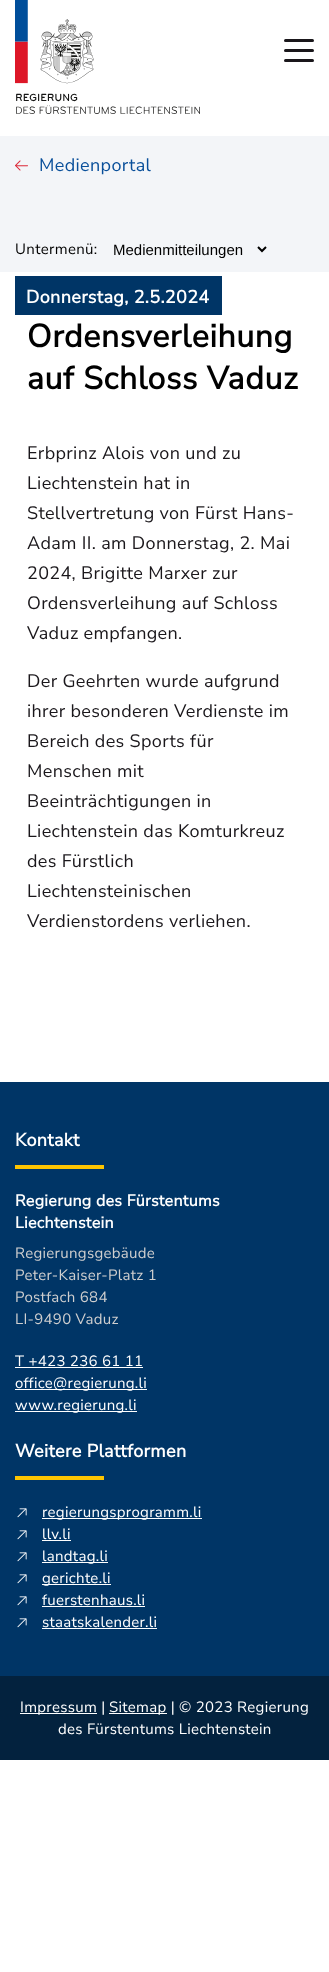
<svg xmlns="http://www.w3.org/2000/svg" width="329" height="1972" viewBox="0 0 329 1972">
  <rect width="100%" height="100%" fill="#ffffff"/>
  <image x="15" y="0" width="185" height="114" href="img1.png"/>
  <rect x="284" y="39" width="30" height="3" rx="1.5" fill="#1a171b"/>
  <rect x="284" y="49" width="30" height="3" rx="1.5" fill="#1a171b"/>
  <rect x="284" y="59" width="30" height="3" rx="1.5" fill="#1a171b"/>
  <rect x="0" y="136" width="329" height="136" fill="#f3f5f8"/>
  <image x="15" y="160" width="13" height="11" href="img2.png"/>
  <text x="39" y="171" font-family="Nunito Sans" font-size="18" letter-spacing="0.35" fill="#094f9a">Medienportal</text>
  <text x="15" y="254" font-family="Nunito Sans" font-size="15" letter-spacing="0.35" fill="#000000">Untermenü:</text>
  <path d="M258 247L262 251L266 247" fill="none" stroke="#000000" stroke-width="2"/>
  <text x="113" y="255" font-family="Liberation Sans" font-size="15" fill="#000000">Medienmitteilungen</text>
  <rect x="15" y="276" width="207" height="39" fill="#003566"/>
  <text x="26" y="303" font-family="Nunito Sans" font-size="18" font-weight="bold" letter-spacing="0.35" fill="#ffffff">Donnerstag, 2.5.2024</text>
  <text x="27" y="347" font-family="Nunito Sans" font-size="32" font-weight="bold" letter-spacing="0.6" fill="#000000">Ordensverleihung</text>
  <text x="27" y="389" font-family="Nunito Sans" font-size="32" font-weight="bold" letter-spacing="0.6" fill="#000000">auf Schloss Vaduz</text>
  <text x="27" y="459" font-family="Nunito Sans" font-size="18" letter-spacing="0.35" fill="#1a171b">Erbprinz Alois von und zu</text>
  <text x="27" y="489" font-family="Nunito Sans" font-size="18" letter-spacing="0.35" fill="#1a171b">Liechtenstein hat in</text>
  <text x="27" y="519" font-family="Nunito Sans" font-size="18" letter-spacing="0.35" fill="#1a171b">Stellvertretung von Fürst Hans-</text>
  <text x="27" y="549" font-family="Nunito Sans" font-size="18" letter-spacing="0.35" fill="#1a171b">Adam II. am Donnerstag, 2. Mai</text>
  <text x="27" y="579" font-family="Nunito Sans" font-size="18" letter-spacing="0.35" fill="#1a171b">2024, Brigitte Marxer zur</text>
  <text x="27" y="609" font-family="Nunito Sans" font-size="18" letter-spacing="0.35" fill="#1a171b">Ordensverleihung auf Schloss</text>
  <text x="27" y="639" font-family="Nunito Sans" font-size="18" letter-spacing="0.35" fill="#1a171b">Vaduz empfangen.</text>
  <text x="27" y="687" font-family="Nunito Sans" font-size="18" letter-spacing="0.35" fill="#1a171b">Der Geehrten wurde aufgrund</text>
  <text x="27" y="717" font-family="Nunito Sans" font-size="18" letter-spacing="0.35" fill="#1a171b">ihrer besonderen Verdienste im</text>
  <text x="27" y="747" font-family="Nunito Sans" font-size="18" letter-spacing="0.35" fill="#1a171b">Bereich des Sports für</text>
  <text x="27" y="777" font-family="Nunito Sans" font-size="18" letter-spacing="0.35" fill="#1a171b">Menschen mit</text>
  <text x="27" y="807" font-family="Nunito Sans" font-size="18" letter-spacing="0.35" fill="#1a171b">Beeinträchtigungen in</text>
  <text x="27" y="837" font-family="Nunito Sans" font-size="18" letter-spacing="0.35" fill="#1a171b">Liechtenstein das Komturkreuz</text>
  <text x="27" y="867" font-family="Nunito Sans" font-size="18" letter-spacing="0.35" fill="#1a171b">des Fürstlich</text>
  <text x="27" y="897" font-family="Nunito Sans" font-size="18" letter-spacing="0.35" fill="#1a171b">Liechtensteinischen</text>
  <text x="27" y="927" font-family="Nunito Sans" font-size="18" letter-spacing="0.35" fill="#1a171b">Verdienstordens verliehen.</text>
  <rect x="0" y="1082" width="329" height="594" fill="#003566"/>
  <text x="15" y="1146" font-family="Nunito Sans" font-size="18" font-weight="bold" letter-spacing="0.35" fill="#ffffff">Kontakt</text>
  <rect x="15" y="1165" width="89" height="4" fill="#fdc400"/>
  <text x="15" y="1206" font-family="Nunito Sans" font-size="16" font-weight="bold" letter-spacing="0.3" fill="#ffffff">Regierung des Fürstentums</text>
  <text x="15" y="1228" font-family="Nunito Sans" font-size="16" font-weight="bold" letter-spacing="0.3" fill="#ffffff">Liechtenstein</text>
  <text x="15" y="1258" font-family="Nunito Sans" font-size="15" letter-spacing="0.3" fill="#cfcfcf">Regierungsgebäude</text>
  <text x="15" y="1280" font-family="Nunito Sans" font-size="15" letter-spacing="0.3" fill="#cfcfcf">Peter-Kaiser-Platz 1</text>
  <text x="15" y="1302" font-family="Nunito Sans" font-size="15" letter-spacing="0.3" fill="#cfcfcf">Postfach 684</text>
  <text x="15" y="1324" font-family="Nunito Sans" font-size="15" letter-spacing="0.3" fill="#cfcfcf">LI-9490 Vaduz</text>
  <text x="15" y="1366" font-family="Nunito Sans" font-size="15" letter-spacing="0.3" fill="#ffffff">T +423 236 61 11</text>
  <rect x="15" y="1367" width="128" height="1" fill="#ffffff"/>
  <rect x="15" y="1389" width="132" height="1" fill="#ffffff"/>
  <text x="15" y="1388" font-family="Nunito Sans" font-size="15" letter-spacing="0.3" fill="#ffffff">office@regierung.li</text>
  <rect x="15" y="1411" width="122" height="1" fill="#ffffff"/>
  <text x="15" y="1410" font-family="Nunito Sans" font-size="15" letter-spacing="0.3" fill="#ffffff">www.regierung.li</text>
  <text x="15" y="1457" font-family="Nunito Sans" font-size="18" font-weight="bold" letter-spacing="0.35" fill="#ffffff">Weitere Plattformen</text>
  <rect x="15" y="1476" width="89" height="4" fill="#fdc400"/>
  <image x="17" y="1508" width="10" height="10" href="img3.png"/>
  <rect x="42" y="1518" width="160" height="1" fill="#ffffff"/>
  <text x="42" y="1517" font-family="Nunito Sans" font-size="15" letter-spacing="0.3" fill="#ffffff">regierungsprogramm.li</text>
  <image x="17" y="1530" width="10" height="10" href="img3.png"/>
  <text x="42" y="1539" font-family="Nunito Sans" font-size="15" letter-spacing="0.3" fill="#ffffff">llv.li</text>
  <rect x="42" y="1540" width="29" height="1" fill="#ffffff"/>
  <image x="17" y="1552" width="10" height="10" href="img3.png"/>
  <rect x="42" y="1562" width="66" height="1" fill="#ffffff"/>
  <text x="42" y="1561" font-family="Nunito Sans" font-size="15" letter-spacing="0.3" fill="#ffffff">landtag.li</text>
  <image x="17" y="1574" width="10" height="10" href="img3.png"/>
  <rect x="42" y="1584" width="69" height="1" fill="#ffffff"/>
  <text x="42" y="1583" font-family="Nunito Sans" font-size="15" letter-spacing="0.3" fill="#ffffff">gerichte.li</text>
  <image x="17" y="1596" width="10" height="10" href="img3.png"/>
  <text x="42" y="1605" font-family="Nunito Sans" font-size="15" letter-spacing="0.3" fill="#ffffff">fuerstenhaus.li</text>
  <rect x="42" y="1606" width="103" height="1" fill="#ffffff"/>
  <image x="17" y="1618" width="10" height="10" href="img3.png"/>
  <text x="42" y="1627" font-family="Nunito Sans" font-size="15" letter-spacing="0.3" fill="#ffffff">staatskalender.li</text>
  <rect x="42" y="1628" width="115" height="1" fill="#ffffff"/>
  <rect x="0" y="1676" width="329" height="84" fill="#03223e"/>
  <rect x="20" y="1713" width="77" height="1" fill="#ffffff"/>
  <text x="20" y="1712" font-family="Nunito Sans" font-size="15" letter-spacing="0.3" fill="#ffffff">Impressum |</text>
  <rect x="109" y="1713" width="58" height="1" fill="#ffffff"/>
  <text x="109" y="1712" font-family="Nunito Sans" font-size="15" letter-spacing="0.3" fill="#ffffff">Sitemap | © 2023 Regierung</text>
  <text x="58" y="1734" font-family="Nunito Sans" font-size="15" letter-spacing="0.3" fill="#ffffff">des Fürstentums Liechtenstein</text>
</svg>
